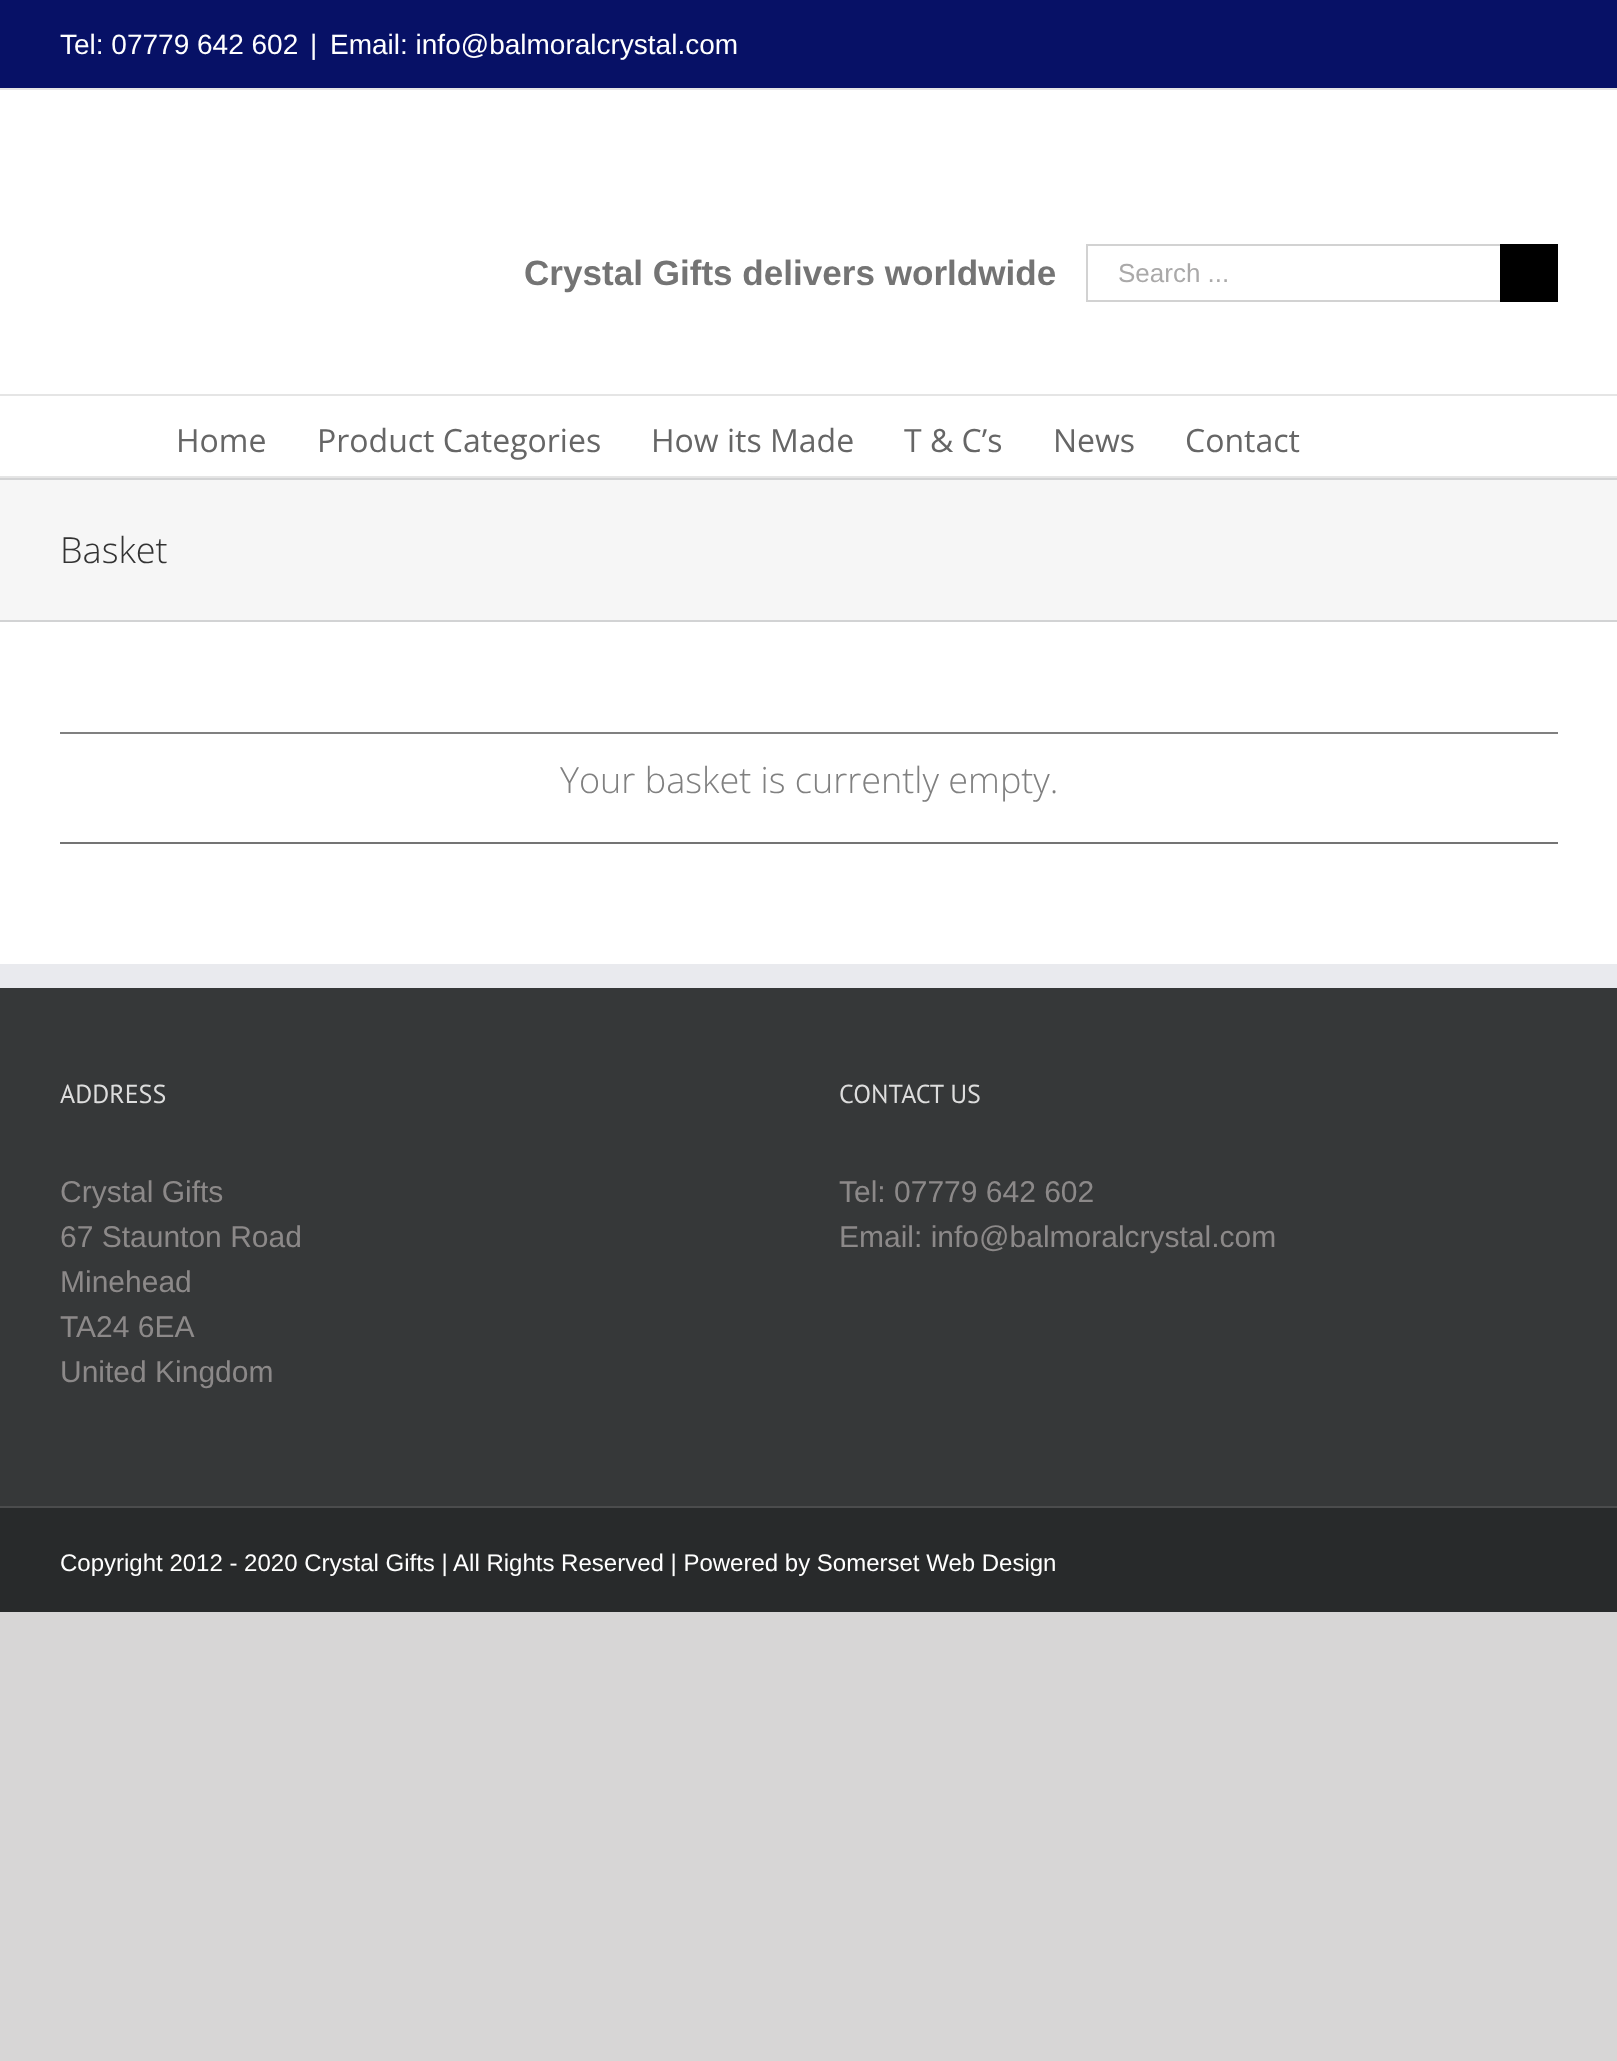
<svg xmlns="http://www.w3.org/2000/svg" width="1617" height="2061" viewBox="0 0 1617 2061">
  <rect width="100%" height="100%" fill="#d7d6d6"/>
  <rect x="0" y="90" width="1617" height="874" fill="#ffffff"/>
  <rect x="0" y="0" width="1617" height="88" fill="#071166"/>
  <rect x="0" y="88" width="1617" height="2" fill="#e5e5e5"/>
  <text x="60" y="54" font-family="Liberation Sans" font-size="28" fill="#ffffff">Tel: 07779 642 602</text>
  <text x="310" y="54" font-family="Liberation Sans" font-size="28" fill="#ffffff">|</text>
  <text x="330" y="54" font-family="Liberation Sans" font-size="28" fill="#ffffff">Email: info@balmoralcrystal.com</text>
  <rect x="0" y="394" width="1617" height="2" fill="#e5e5e5"/>
  <text x="524" y="285" font-family="Liberation Sans" font-size="35.1" font-weight="bold" fill="#747474">Crystal Gifts delivers worldwide</text>
  <rect x="1086" y="244" width="414" height="2" fill="#d2d2d2"/>
  <rect x="1086" y="300" width="414" height="2" fill="#d2d2d2"/>
  <rect x="1086" y="244" width="2" height="58" fill="#d2d2d2"/>
  <text x="1118" y="282" font-family="Liberation Sans" font-size="26" fill="#aaa9a9">Search ...</text>
  <rect x="1500" y="244" width="58" height="58" fill="#000000"/>
  <rect x="0" y="476" width="1617" height="2" fill="#e5e5e5"/>
  <text x="176" y="452" font-family="Open Sans" font-size="32" fill="#666666">Home</text>
  <text x="317" y="452" font-family="Open Sans" font-size="32" fill="#666666">Product Categories</text>
  <text x="651" y="452" font-family="Open Sans" font-size="32" fill="#666666">How its Made</text>
  <text x="904" y="452" font-family="Open Sans" font-size="32" fill="#666666">T &amp; C’s</text>
  <text x="1053" y="452" font-family="Open Sans" font-size="32" fill="#666666">News</text>
  <text x="1185" y="452" font-family="Open Sans" font-size="32" fill="#666666">Contact</text>
  <rect x="0" y="480" width="1617" height="140" fill="#f6f6f6"/>
  <rect x="0" y="478" width="1617" height="2" fill="#d2d3d4"/>
  <rect x="0" y="620" width="1617" height="2" fill="#d2d3d4"/>
  <text x="60" y="563" font-family="Open Sans" font-size="36" font-weight="300" fill="#333333">Basket</text>
  <rect x="60" y="732" width="1498" height="2" fill="#808080"/>
  <text x="560" y="793" font-family="Open Sans" font-size="36" font-weight="300" fill="#808080">Your basket is currently empty.</text>
  <rect x="60" y="842" width="1498" height="2" fill="#747474"/>
  <rect x="0" y="988" width="1617" height="518" fill="#363839"/>
  <rect x="0" y="964" width="1617" height="24" fill="#e9eaee"/>
  <text x="60" y="1103" font-family="PT Sans" font-size="26" fill="#dddddd">ADDRESS</text>
  <text x="60" y="1202" font-family="Liberation Sans" font-size="30" fill="#8c8989">Crystal Gifts</text>
  <text x="60" y="1247" font-family="Liberation Sans" font-size="30" fill="#8c8989">67 Staunton Road</text>
  <text x="60" y="1292" font-family="Liberation Sans" font-size="30" fill="#8c8989">Minehead</text>
  <text x="60" y="1337" font-family="Liberation Sans" font-size="30" fill="#8c8989">TA24 6EA</text>
  <text x="60" y="1382" font-family="Liberation Sans" font-size="30" fill="#8c8989">United Kingdom</text>
  <text x="839" y="1103" font-family="PT Sans" font-size="26" fill="#dddddd">CONTACT US</text>
  <text x="839" y="1202" font-family="Liberation Sans" font-size="30" fill="#8c8989">Tel: 07779 642 602</text>
  <text x="839" y="1247" font-family="Liberation Sans" font-size="30" fill="#8c8989">Email: info@balmoralcrystal.com</text>
  <rect x="0" y="1508" width="1617" height="104" fill="#282a2b"/>
  <rect x="0" y="1506" width="1617" height="2" fill="#4b4c4d"/>
  <text x="60" y="1571" font-family="Liberation Sans" font-size="24" fill="#ffffff">Copyright 2012 - 2020 Crystal Gifts | All Rights Reserved | Powered by Somerset Web Design</text>
</svg>
